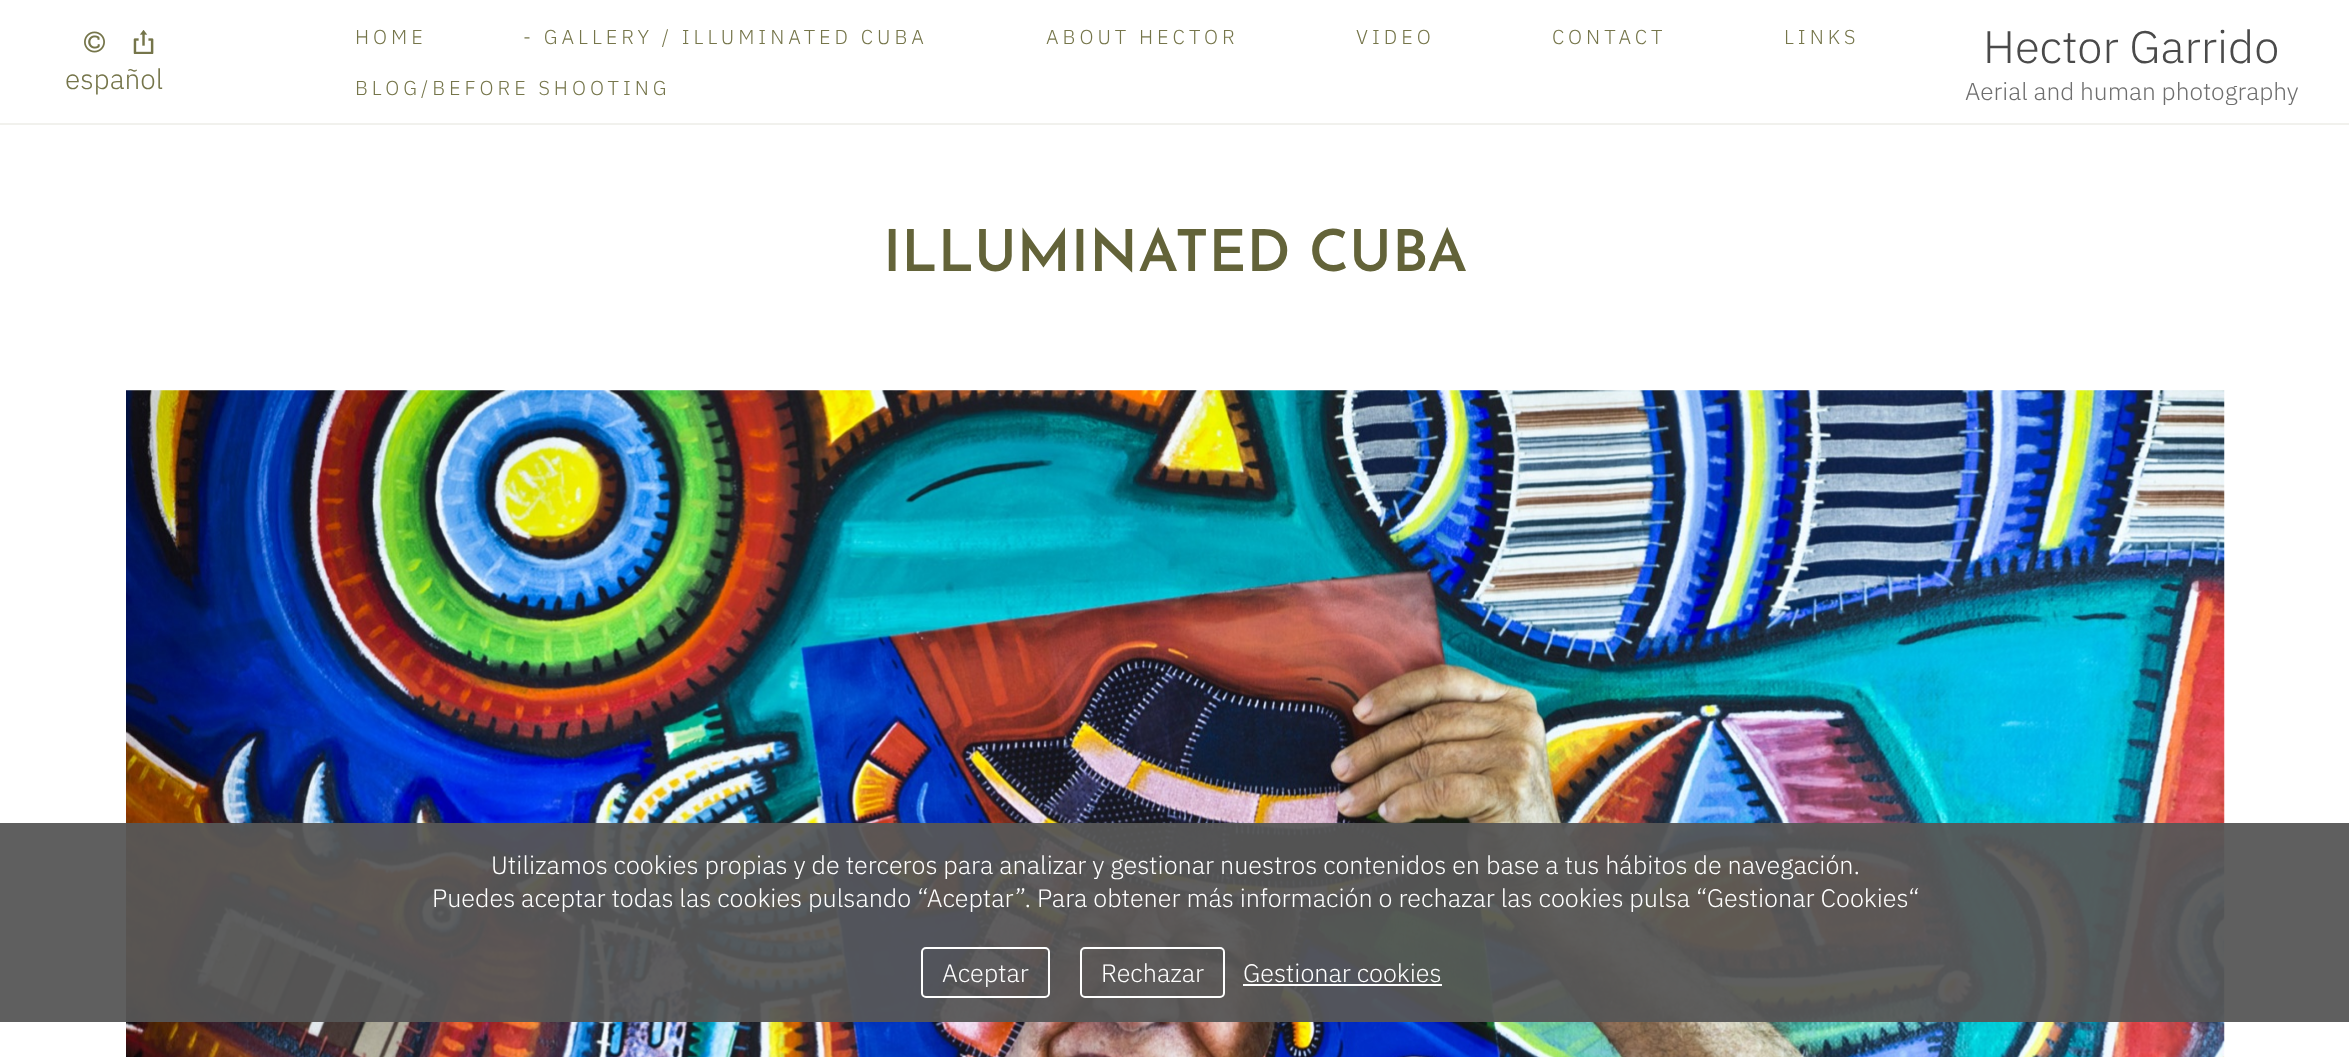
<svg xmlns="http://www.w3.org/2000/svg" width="2349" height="1057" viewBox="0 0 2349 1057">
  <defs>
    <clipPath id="clip1"><rect x="1957" y="18" width="350" height="87"/></clipPath>
  </defs>
  <rect width="100%" height="100%" fill="#ffffff"/>
  <rect x="0" y="123" width="2349" height="2" fill="#f1f1ed"/>
  <image x="84" y="31" width="21" height="22" href="img1.png"/>
  <image x="133" y="30" width="21" height="24" href="img2.png"/>
  <text x="65" y="89" font-family="IBM Plex Sans" font-size="28" font-weight="300" fill="#75754a">español</text>
  <text x="355" y="44" font-family="IBM Plex Sans" font-size="20.1" font-weight="300" letter-spacing="4" fill="#75754a">HOME</text>
  <text x="523" y="44" font-family="IBM Plex Sans" font-size="20.1" font-weight="300" letter-spacing="4" fill="#75754a">- GALLERY / ILLUMINATED CUBA</text>
  <text x="1046" y="44" font-family="IBM Plex Sans" font-size="20.1" font-weight="300" letter-spacing="4" fill="#75754a">ABOUT HECTOR</text>
  <text x="1356" y="44" font-family="IBM Plex Sans" font-size="20.1" font-weight="300" letter-spacing="4" fill="#75754a">VIDEO</text>
  <text x="1552" y="44" font-family="IBM Plex Sans" font-size="20.1" font-weight="300" letter-spacing="4" fill="#75754a">CONTACT</text>
  <text x="1784" y="44" font-family="IBM Plex Sans" font-size="20.1" font-weight="300" letter-spacing="4" fill="#75754a">LINKS</text>
  <text x="355" y="95" font-family="IBM Plex Sans" font-size="20.1" font-weight="300" letter-spacing="4" fill="#75754a">BLOG/BEFORE SHOOTING</text>
  <text x="1983" y="63" font-family="IBM Plex Sans" font-size="45.5" font-weight="300" fill="#4a4a4a">Hector Garrido</text>
  <g clip-path="url(#clip1)">
    <text x="1965" y="100" font-family="IBM Plex Sans" font-size="24.5" font-weight="300" fill="#6e6e6e">Aerial and human photography</text>
  </g>
  <text x="883" y="271" font-family="Josefin Sans" font-size="57.75" font-weight="600" fill="#636339">ILLUMINATED CUBA</text>
  <image x="126" y="390" width="2099" height="667" href="img3.png"/>
  <rect x="0" y="823" width="2349" height="199" fill="#565656" fill-opacity="0.95"/>
  <text x="491" y="874" font-family="IBM Plex Sans" font-size="25.2" font-weight="300" fill="#ffffff">Utilizamos cookies propias y de terceros para analizar y gestionar nuestros contenidos en base a tus hábitos de navegación.</text>
  <text x="432" y="907" font-family="IBM Plex Sans" font-size="25.2" font-weight="300" fill="#ffffff">Puedes aceptar todas las cookies pulsando “Aceptar”. Para obtener más información o rechazar las cookies pulsa “Gestionar Cookies“</text>
  <rect x="922" y="948" width="127" height="49" rx="4" fill="none" stroke="#ffffff" stroke-width="2"/>
  <text x="942" y="982" font-family="IBM Plex Sans" font-size="25.2" font-weight="300" fill="#ffffff">Aceptar</text>
  <rect x="1081" y="948" width="143" height="49" rx="4" fill="none" stroke="#ffffff" stroke-width="2"/>
  <text x="1101" y="982" font-family="IBM Plex Sans" font-size="25.2" font-weight="300" fill="#ffffff">Rechazar</text>
  <text x="1243" y="982" font-family="IBM Plex Sans" font-size="25.2" font-weight="300" fill="#ffffff">Gestionar cookies</text>
  <rect x="1243" y="984" width="199" height="2" fill="#ffffff"/>
</svg>
